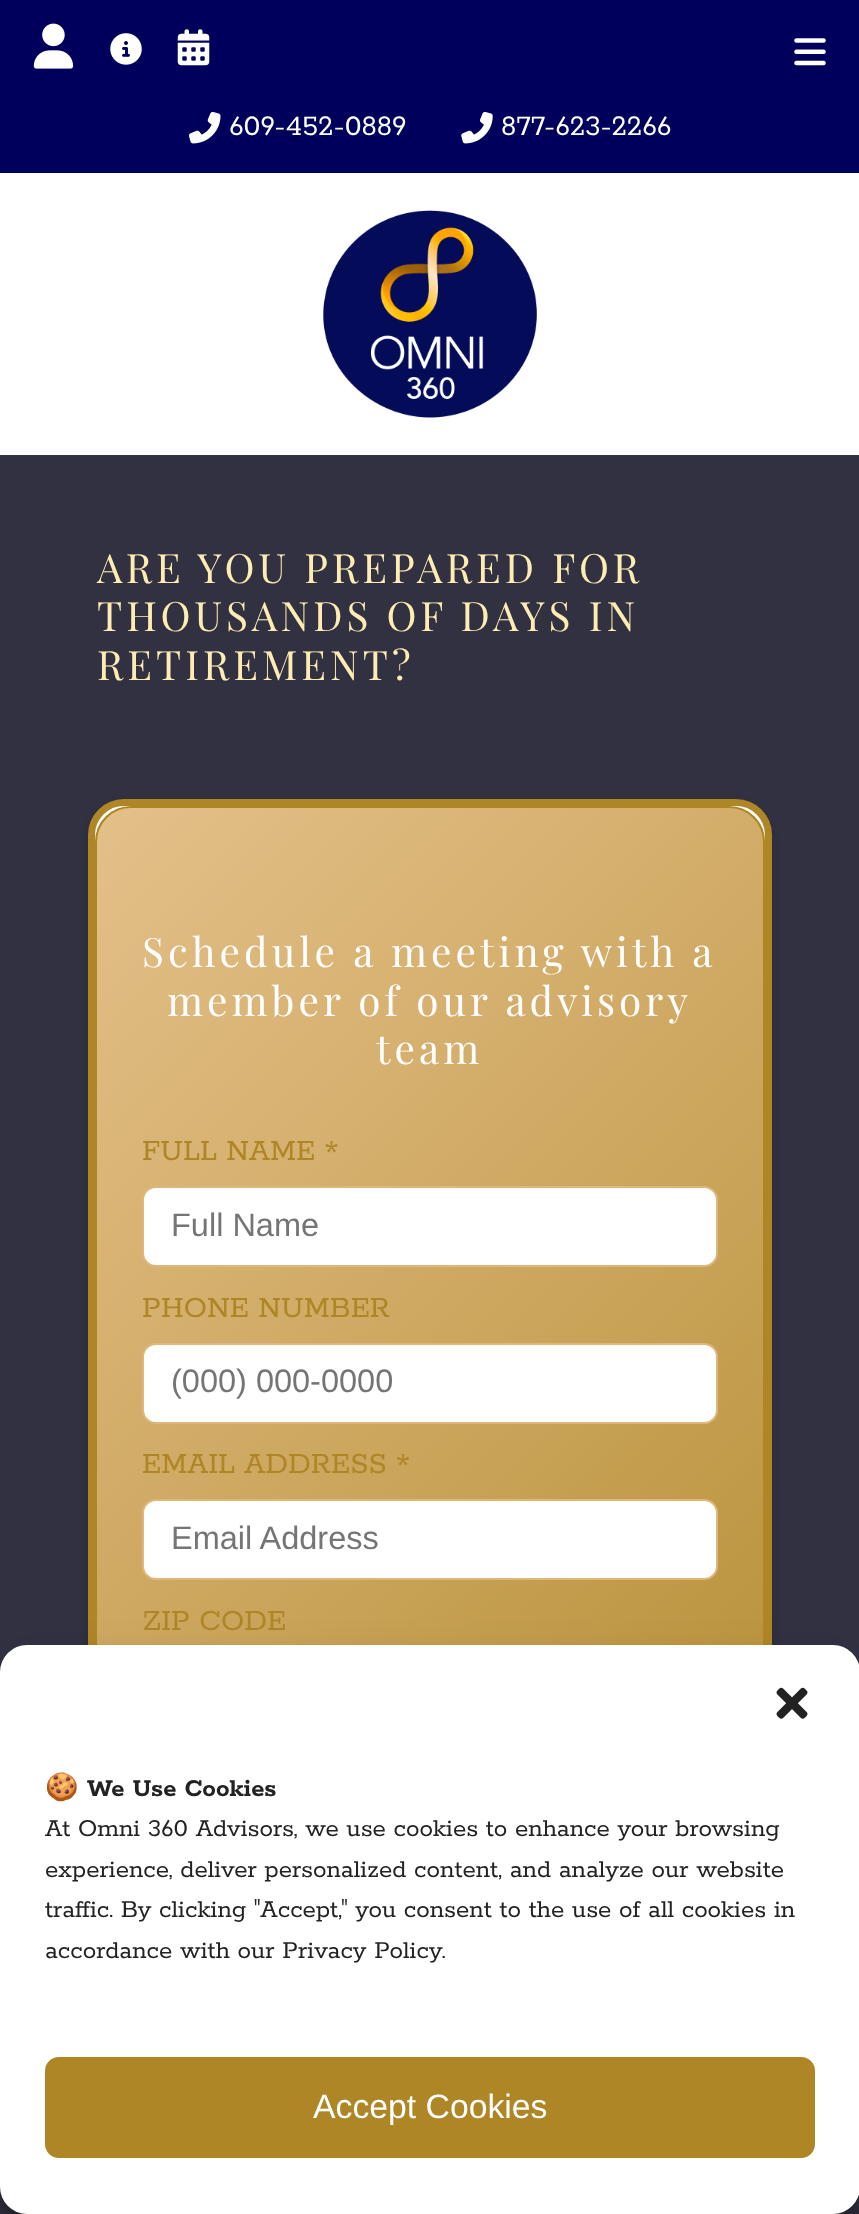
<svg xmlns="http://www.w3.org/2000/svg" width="859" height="2214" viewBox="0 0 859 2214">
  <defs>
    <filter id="blur1" x="-50%" y="-200%" width="200%" height="500%"><feGaussianBlur stdDeviation="5.5"/></filter>
    <clipPath id="clip1"><rect x="95" y="806" width="670" height="1379" rx="36"/></clipPath>
    <linearGradient id="g1" gradientUnits="userSpaceOnUse" x1="-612" y1="1517" x2="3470" y2="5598"><stop offset="0" stop-color="#e4c08a"/><stop offset="0.25" stop-color="#ae8626"/><stop offset="0.5" stop-color="#8c6b1e"/><stop offset="0.75" stop-color="#ae8626"/><stop offset="1" stop-color="#e4c08a"/></linearGradient>
    <filter id="blur2" x="-50%" y="-200%" width="200%" height="500%"><feGaussianBlur stdDeviation="7"/></filter>
    <filter id="blur3" x="-50%" y="-200%" width="200%" height="500%"><feGaussianBlur stdDeviation="22.5"/></filter>
  </defs>
  <rect width="100%" height="100%" fill="#ffffff"/>
  <rect x="0" y="0" width="859" height="173" fill="#00005c"/>
  <image x="33" y="23" width="41" height="46" href="img1.png"/>
  <image x="110" y="33" width="32" height="32" href="img2.png"/>
  <image x="177" y="29" width="33" height="37" href="img3.png"/>
  <image x="794" y="38" width="32" height="28" href="img4.png"/>
  <image x="189" y="111" width="32" height="33" href="img5.png"/>
  <text x="229" y="135" font-family="Rokkitt" font-size="31.5" fill="#ffffff">609-452-0889</text>
  <image x="461" y="111" width="32" height="33" href="img6.png"/>
  <text x="501" y="135" font-family="Rokkitt" font-size="31.5" fill="#ffffff">877-623-2266</text>
  <image x="323" y="210" width="214" height="208" href="img7.png"/>
  <rect x="0" y="455" width="859" height="1759" fill="#313142"/>
  <text x="97" y="583" font-family="Playfair Display" font-size="40.5" letter-spacing="4.05" fill="#ffecb3">ARE YOU PREPARED FOR</text>
  <text x="97" y="631" font-family="Playfair Display" font-size="40.5" letter-spacing="4.05" fill="#ffecb3">THOUSANDS OF DAYS IN</text>
  <text x="97" y="680" font-family="Playfair Display" font-size="40.5" letter-spacing="4.05" fill="#ffecb3">RETIREMENT?</text>
  <rect x="88" y="803" width="684" height="1393" rx="36" fill="#000000" fill-opacity="0.16" filter="url(#blur1)"/>
  <rect x="91.5" y="802.5" width="677" height="1386" rx="32.5" fill="#ffffff" stroke="#ae8626" stroke-width="7"/>
  <g clip-path="url(#clip1)">
    <path d="M97 808H765V2149C765 2169 749 2185 729 2185H97Z" fill="url(#g1)"/>
  </g>
  <rect x="96" y="807" width="668" height="1377" rx="35" fill="none" stroke="#ae8626" stroke-width="2"/>
  <text x="142" y="967" font-family="Playfair Display" font-size="40.5" letter-spacing="4.05" fill="#ffffff">Schedule a meeting with a</text>
  <text x="167" y="1016" font-family="Playfair Display" font-size="40.5" letter-spacing="4.05" fill="#ffffff">member of our advisory</text>
  <text x="376" y="1064" font-family="Playfair Display" font-size="40.5" letter-spacing="4.05" fill="#ffffff">team</text>
  <text x="142" y="1160" font-family="Rokkitt" font-size="32.5" fill="#ae8626">FULL NAME *</text>
  <rect x="143" y="1187" width="574" height="79" rx="13" fill="#ffffff" stroke="#ddb87d" stroke-width="2"/>
  <text x="171" y="1236" font-family="Liberation Sans" font-size="32.5" fill="#757575">Full Name</text>
  <text x="142" y="1317" font-family="Rokkitt" font-size="32.5" fill="#ae8626">PHONE NUMBER</text>
  <rect x="143" y="1344" width="574" height="79" rx="13" fill="#ffffff" stroke="#ddb87d" stroke-width="2"/>
  <text x="171" y="1392" font-family="Liberation Sans" font-size="32.5" fill="#757575">(000) 000-0000</text>
  <text x="142" y="1473" font-family="Rokkitt" font-size="32.5" fill="#ae8626">EMAIL ADDRESS *</text>
  <rect x="143" y="1500" width="574" height="79" rx="13" fill="#ffffff" stroke="#ddb87d" stroke-width="2"/>
  <text x="171" y="1549" font-family="Liberation Sans" font-size="32.5" fill="#757575">Email Address</text>
  <text x="142" y="1630" font-family="Rokkitt" font-size="32.5" fill="#ae8626">ZIP CODE</text>
  <rect x="0" y="1658" width="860" height="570" rx="27" fill="#000000" fill-opacity="0.23" filter="url(#blur2)"/>
  <rect x="0" y="1667" width="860" height="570" rx="27" fill="#000000" fill-opacity="0.19" filter="url(#blur3)"/>
  <rect x="0" y="1645" width="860" height="569" rx="27" fill="#ffffff"/>
  <image x="776" y="1687" width="32" height="32" href="img8.png"/>
  <text x="45" y="1796" font-family="Noto Color Emoji" font-size="27" font-weight="bold" fill="#222222">🍪</text>
  <text x="87" y="1796" font-family="Rokkitt" font-size="27" font-weight="bold" fill="#222222">We Use Cookies</text>
  <text x="45" y="1836" font-family="Rokkitt" font-size="27" fill="#222222">At Omni 360 Advisors, we use cookies to enhance your browsing</text>
  <text x="45" y="1877" font-family="Rokkitt" font-size="27" fill="#222222">experience, deliver personalized content, and analyze our website</text>
  <text x="45" y="1917" font-family="Rokkitt" font-size="27" fill="#222222">traffic. By clicking "Accept," you consent to the use of all cookies in</text>
  <text x="45" y="1958" font-family="Rokkitt" font-size="27" fill="#222222">accordance with our Privacy Policy.</text>
  <rect x="46" y="2058" width="768" height="99" rx="13" fill="#ae8626" stroke="#ae8626" stroke-width="2"/>
  <text x="313" y="2118" font-family="Liberation Sans" font-size="33.75" fill="#ffffff">Accept Cookies</text>
</svg>
